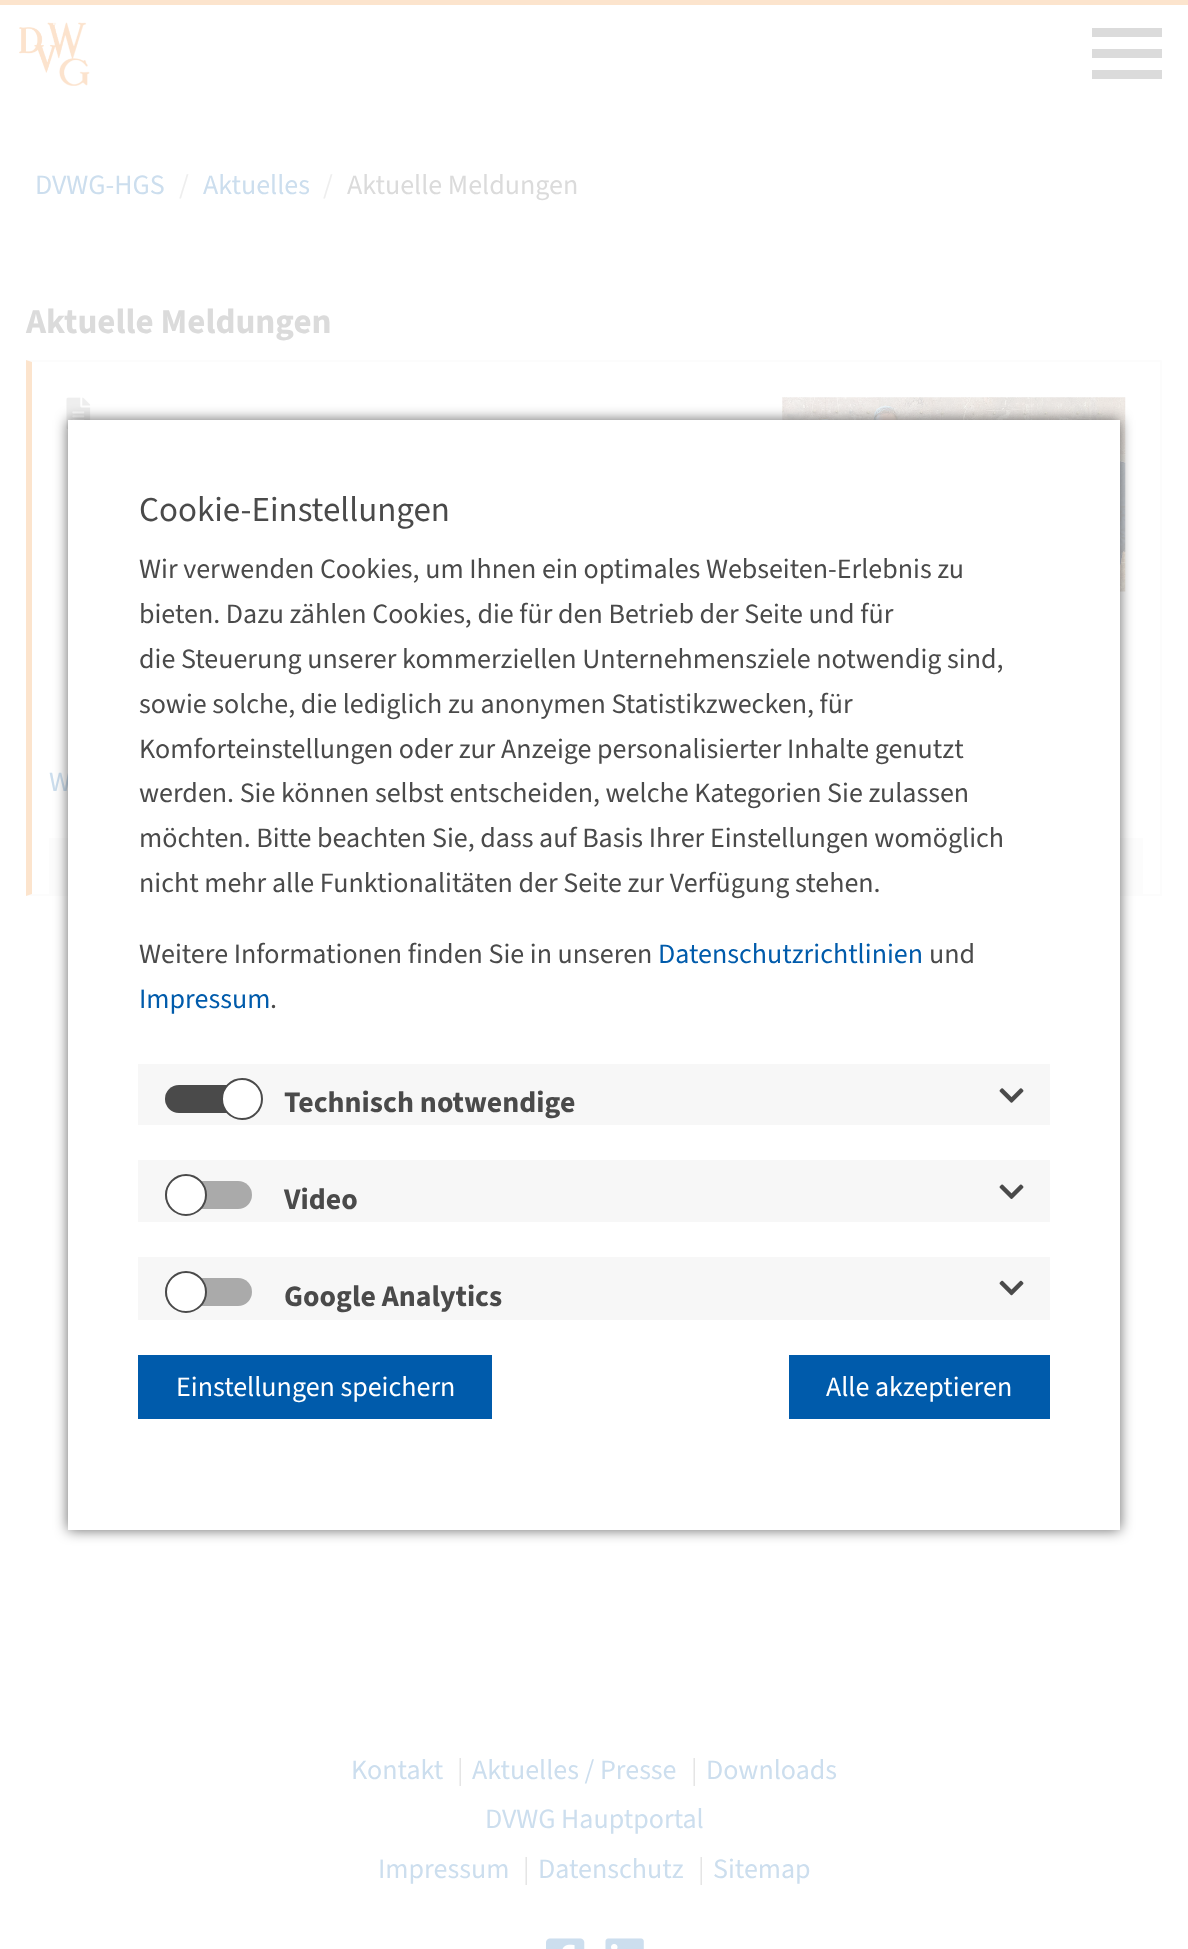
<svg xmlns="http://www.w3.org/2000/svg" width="1188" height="1949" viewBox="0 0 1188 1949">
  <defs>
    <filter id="blur1" x="-50%" y="-200%" width="200%" height="500%"><feGaussianBlur stdDeviation="7"/></filter>
  </defs>
  <rect width="100%" height="100%" fill="#ffffff"/>
  <rect x="0" y="0" width="1188" height="5" fill="#fce4cd"/>
  <image x="19" y="22" width="71" height="64" href="img1.png"/>
  <rect x="53" y="22" width="3" height="3" fill="#ffffff" fill-opacity="0.62"/>
  <rect x="1092" y="49" width="70" height="9" fill="#dbdbdb"/>
  <rect x="1092" y="28" width="70" height="9" fill="#dbdbdb"/>
  <rect x="1092" y="70" width="70" height="9" fill="#dbdbdb"/>
  <text x="35" y="194" font-family="'Source Sans 3'" font-size="28" fill="#ccdeee">DVWG-HGS</text>
  <text x="179" y="194" font-family="'Source Sans 3'" font-size="28" fill="#eeeeee">/</text>
  <text x="203" y="194" font-family="'Source Sans 3'" font-size="28" fill="#ccdeee">Aktuelles</text>
  <text x="323" y="194" font-family="'Source Sans 3'" font-size="28" fill="#eeeeee">/</text>
  <text x="347" y="194" font-family="'Source Sans 3'" font-size="28" fill="#dbdbdb">Aktuelle Meldungen</text>
  <text x="26" y="333" font-family="'Source Sans 3'" font-size="35" font-weight="bold" fill="#dbdbdb">Aktuelle Meldungen</text>
  <path d="M26 360H1162L1160 362H32Z" fill="#fcfcfc"/>
  <rect x="1160" y="361" width="2" height="535" fill="#fcfcfc"/>
  <path d="M1162 896H26L32 894H1160Z" fill="#fcfcfc"/>
  <path d="M26 896V360L32 362V894Z" fill="#fce4cd"/>
  <image x="66" y="397" width="25" height="33" href="img2.png"/>
  <image x="782" y="397" width="344" height="195" href="img3.png"/>
  <text x="49" y="791" font-family="'Source Sans 3'" font-size="28" fill="#ccdeee">W</text>
  <rect x="49" y="838" width="1094" height="56" fill="#fcfcfc"/>
  <text x="351" y="1779" font-family="'Source Sans 3'" font-size="28" fill="#ccdeee">Kontakt</text>
  <text x="457" y="1779" font-family="'Source Sans 3'" font-size="28" font-weight="300" fill="#dbdbdb">|</text>
  <text x="472" y="1779" font-family="'Source Sans 3'" font-size="28" fill="#ccdeee">Aktuelles / Presse</text>
  <text x="691" y="1779" font-family="'Source Sans 3'" font-size="28" font-weight="300" fill="#dbdbdb">|</text>
  <text x="706" y="1779" font-family="'Source Sans 3'" font-size="28" fill="#ccdeee">Downloads</text>
  <text x="485" y="1828" font-family="'Source Sans 3'" font-size="28" fill="#ccdeee">DVWG Hauptportal</text>
  <text x="378" y="1878" font-family="'Source Sans 3'" font-size="28" fill="#ccdeee">Impressum</text>
  <text x="523" y="1878" font-family="'Source Sans 3'" font-size="28" font-weight="300" fill="#dbdbdb">|</text>
  <text x="538" y="1878" font-family="'Source Sans 3'" font-size="28" fill="#ccdeee">Datenschutz</text>
  <text x="698" y="1878" font-family="'Source Sans 3'" font-size="28" font-weight="300" fill="#dbdbdb">|</text>
  <text x="713" y="1878" font-family="'Source Sans 3'" font-size="28" fill="#ccdeee">Sitemap</text>
  <image x="546" y="1938" width="39" height="11" href="img4.png"/>
  <image x="605" y="1938" width="39" height="11" href="img5.png"/>
  <rect x="68" y="420" width="1052" height="1110" fill="#000000" fill-opacity="0.6" filter="url(#blur1)"/>
  <rect x="68" y="420" width="1052" height="1110" fill="#ffffff"/>
  <text x="139" y="521" font-family="'Source Sans 3'" font-size="35" fill="#4a4a4a">Cookie-Einstellungen</text>
  <text x="139" y="578" font-family="'Source Sans 3'" font-size="28" fill="#4a4a4a">Wir verwenden Cookies, um Ihnen ein optimales Webseiten-Erlebnis zu</text>
  <text x="139" y="623" font-family="'Source Sans 3'" font-size="28" fill="#4a4a4a">bieten. Dazu zählen Cookies, die für den Betrieb der Seite und für</text>
  <text x="139" y="668" font-family="'Source Sans 3'" font-size="28" fill="#4a4a4a">die Steuerung unserer kommerziellen Unternehmensziele notwendig sind,</text>
  <text x="139" y="713" font-family="'Source Sans 3'" font-size="28" fill="#4a4a4a">sowie solche, die lediglich zu anonymen Statistikzwecken, für</text>
  <text x="139" y="758" font-family="'Source Sans 3'" font-size="28" fill="#4a4a4a">Komforteinstellungen oder zur Anzeige personalisierter Inhalte genutzt</text>
  <text x="139" y="802" font-family="'Source Sans 3'" font-size="28" fill="#4a4a4a">werden. Sie können selbst entscheiden, welche Kategorien Sie zulassen</text>
  <text x="139" y="847" font-family="'Source Sans 3'" font-size="28" fill="#4a4a4a">möchten. Bitte beachten Sie, dass auf Basis Ihrer Einstellungen womöglich</text>
  <text x="139" y="892" font-family="'Source Sans 3'" font-size="28" fill="#4a4a4a">nicht mehr alle Funktionalitäten der Seite zur Verfügung stehen.</text>
  <text x="139" y="963" font-family="'Source Sans 3'" font-size="28" fill="#4a4a4a">Weitere Informationen finden Sie in unseren</text>
  <text x="658" y="963" font-family="'Source Sans 3'" font-size="28" fill="#005bab">Datenschutzrichtlinien</text>
  <text x="929" y="963" font-family="'Source Sans 3'" font-size="28" fill="#4a4a4a">und</text>
  <text x="139" y="1008" font-family="'Source Sans 3'" font-size="28" fill="#005bab">Impressum</text>
  <text x="270" y="1008" font-family="'Source Sans 3'" font-size="28" fill="#4a4a4a">.</text>
  <rect x="138" y="1064" width="912" height="61" fill="#f7f7f7"/>
  <rect x="165" y="1085" width="87" height="28" rx="14" fill="#4a4a4a"/>
  <circle cx="242" cy="1099" r="20" fill="#ffffff" stroke="#4a4a4a" stroke-width="2"/>
  <text x="284" y="1112" font-family="'Source Sans 3'" font-size="29.75" font-weight="bold" fill="#4a4a4a">Technisch notwendige</text>
  <image x="999" y="1088" width="25" height="15" href="img6.png"/>
  <rect x="138" y="1160" width="912" height="62" fill="#f7f7f7"/>
  <rect x="165" y="1181" width="87" height="28" rx="14" fill="#aaaaaa"/>
  <circle cx="186" cy="1195" r="20" fill="#ffffff" stroke="#4a4a4a" stroke-width="2"/>
  <text x="284" y="1209" font-family="'Source Sans 3'" font-size="29.75" font-weight="bold" fill="#4a4a4a">Video</text>
  <image x="999" y="1184" width="25" height="15" href="img7.png"/>
  <rect x="138" y="1257" width="912" height="63" fill="#f7f7f7"/>
  <rect x="165" y="1278" width="87" height="28" rx="14" fill="#aaaaaa"/>
  <circle cx="186" cy="1292" r="20" fill="#ffffff" stroke="#4a4a4a" stroke-width="2"/>
  <text x="284" y="1306" font-family="'Source Sans 3'" font-size="29.75" font-weight="bold" fill="#4a4a4a">Google Analytics</text>
  <image x="999" y="1280" width="25" height="16" href="img8.png"/>
  <rect x="138" y="1355" width="354" height="64" fill="#005bab"/>
  <text x="176" y="1396" font-family="'Source Sans 3'" font-size="28" fill="#ffffff">Einstellungen speichern</text>
  <rect x="789" y="1355" width="261" height="64" fill="#005bab"/>
  <text x="826" y="1396" font-family="'Source Sans 3'" font-size="28" fill="#ffffff">Alle akzeptieren</text>
</svg>
